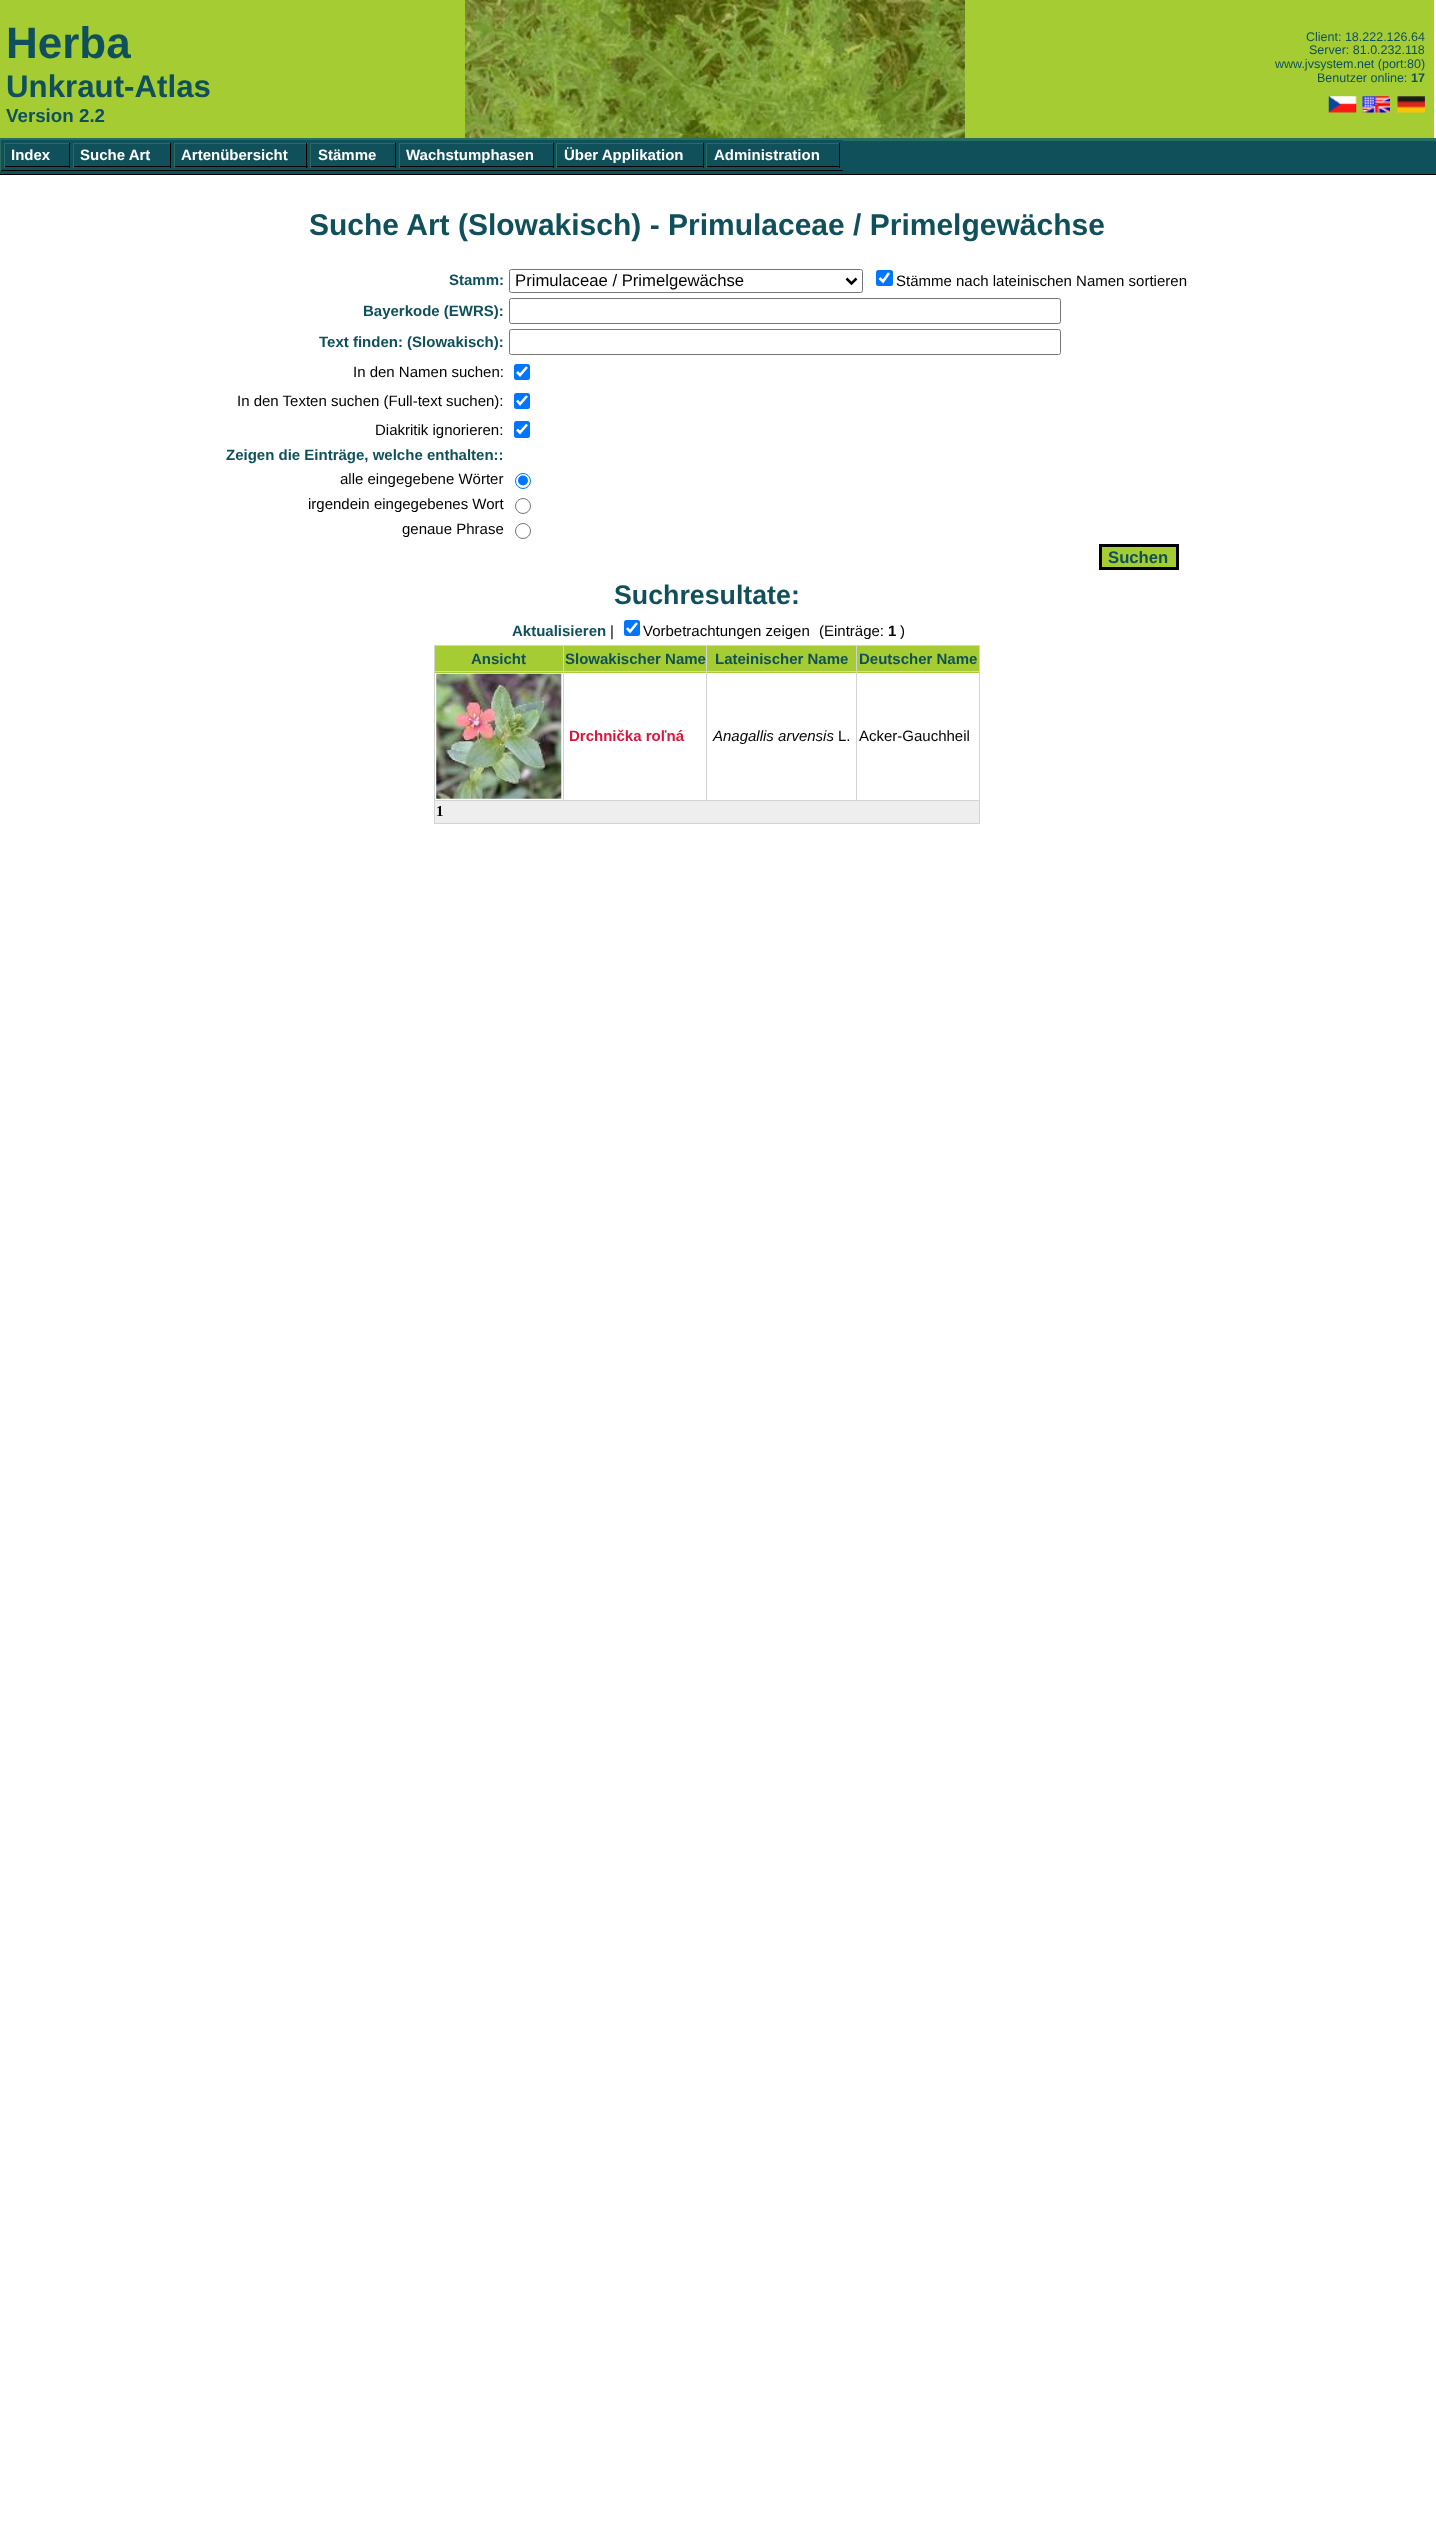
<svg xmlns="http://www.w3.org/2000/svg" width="1436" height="2529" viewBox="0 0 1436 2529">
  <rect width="100%" height="100%" fill="#ffffff"/>
  <rect x="0" y="0" width="1434" height="138" fill="#a5cd33"/>
  <text x="6" y="58" font-family="Liberation Sans" font-size="44" font-weight="bold" fill="#0f505a">Herba</text>
  <text x="6" y="97" font-family="Liberation Sans" font-size="31.25" font-weight="bold" fill="#0f505a">Unkraut-Atlas</text>
  <text x="6" y="122" font-family="Liberation Sans" font-size="18.75" font-weight="bold" fill="#0f505a">Version 2.2</text>
  <image x="465" y="0" width="500" height="138" href="img1.png"/>
  <text x="1306" y="41" font-family="Liberation Sans" font-size="12.5" fill="#0f505a">Client: 18.222.126.64</text>
  <text x="1309" y="54" font-family="Liberation Sans" font-size="12.5" fill="#0f505a">Server: 81.0.232.118</text>
  <text x="1275" y="68" font-family="Liberation Sans" font-size="12.5" fill="#0f505a">www.jvsystem.net (port:80)</text>
  <text x="1317" y="82" font-family="Liberation Sans" font-size="12.5" fill="#0f505a">Benutzer online:</text>
  <text x="1411" y="82" font-family="Liberation Sans" font-size="12.5" font-weight="bold" fill="#0f505a">17</text>
  <image x="1328" y="96" width="29" height="17" href="img2.png"/>
  <image x="1362" y="96" width="28" height="17" href="img3.png"/>
  <image x="1397" y="96" width="28" height="17" href="img4.png"/>
  <rect x="0" y="141" width="1436" height="33" fill="#0f505a"/>
  <rect x="0" y="138" width="1436" height="3" fill="#2a6d5f"/>
  <rect x="0" y="174" width="1436" height="1" fill="#000000"/>
  <rect x="1" y="140" width="842" height="1" fill="#0f505a"/>
  <rect x="0" y="170" width="843" height="1" fill="#000000"/>
  <rect x="0" y="139" width="1" height="32" fill="#2a6d5f"/>
  <rect x="4" y="143" width="66" height="1" fill="#2a6d5f"/>
  <rect x="69" y="143" width="1" height="25" fill="#000000"/>
  <rect x="4" y="166" width="66" height="1" fill="#000000"/>
  <rect x="4" y="143" width="1" height="25" fill="#2a6d5f"/>
  <text x="11" y="160" font-family="Liberation Sans" font-size="15" font-weight="bold" fill="#ffffff">Index</text>
  <rect x="73" y="143" width="98" height="1" fill="#2a6d5f"/>
  <rect x="170" y="143" width="1" height="25" fill="#000000"/>
  <rect x="73" y="166" width="98" height="1" fill="#000000"/>
  <rect x="73" y="143" width="1" height="25" fill="#2a6d5f"/>
  <text x="80" y="160" font-family="Liberation Sans" font-size="15" font-weight="bold" fill="#ffffff">Suche Art</text>
  <rect x="174" y="143" width="134" height="1" fill="#2a6d5f"/>
  <rect x="306" y="143" width="1" height="25" fill="#000000"/>
  <rect x="174" y="166" width="134" height="1" fill="#000000"/>
  <rect x="174" y="143" width="1" height="25" fill="#2a6d5f"/>
  <text x="181" y="160" font-family="Liberation Sans" font-size="15" font-weight="bold" fill="#ffffff">Artenübersicht</text>
  <rect x="310" y="143" width="86" height="1" fill="#2a6d5f"/>
  <rect x="395" y="143" width="1" height="25" fill="#000000"/>
  <rect x="310" y="166" width="86" height="1" fill="#000000"/>
  <rect x="310" y="143" width="1" height="25" fill="#2a6d5f"/>
  <text x="318" y="160" font-family="Liberation Sans" font-size="15" font-weight="bold" fill="#ffffff">Stämme</text>
  <rect x="399" y="143" width="155" height="1" fill="#2a6d5f"/>
  <rect x="553" y="143" width="1" height="25" fill="#000000"/>
  <rect x="399" y="166" width="155" height="1" fill="#000000"/>
  <rect x="399" y="143" width="1" height="25" fill="#2a6d5f"/>
  <text x="406" y="160" font-family="Liberation Sans" font-size="15" font-weight="bold" fill="#ffffff">Wachstumphasen</text>
  <rect x="556" y="143" width="148" height="1" fill="#2a6d5f"/>
  <rect x="703" y="143" width="1" height="25" fill="#000000"/>
  <rect x="556" y="166" width="148" height="1" fill="#000000"/>
  <rect x="556" y="143" width="1" height="25" fill="#2a6d5f"/>
  <text x="564" y="160" font-family="Liberation Sans" font-size="15" font-weight="bold" fill="#ffffff">Über Applikation</text>
  <rect x="706" y="143" width="134" height="1" fill="#2a6d5f"/>
  <rect x="839" y="143" width="1" height="25" fill="#000000"/>
  <rect x="706" y="166" width="134" height="1" fill="#000000"/>
  <rect x="706" y="143" width="1" height="25" fill="#2a6d5f"/>
  <text x="714" y="160" font-family="Liberation Sans" font-size="15" font-weight="bold" fill="#ffffff">Administration</text>
  <text x="309" y="235" font-family="Liberation Sans" font-size="30" font-weight="bold" fill="#0f505a">Suche Art (Slowakisch) - Primulaceae / Primelgewächse</text>
  <text x="449" y="285" font-family="Liberation Sans" font-size="15" font-weight="bold" fill="#0f505a">Stamm:</text>
  <rect x="509.5" y="269.5" width="353" height="23" rx="2" fill="none" stroke="#767676"/>
  <path d="M846.5 278.5L851.5 283.5L856.5 278.5" fill="none" stroke="#000000" stroke-width="2.5"/>
  <text x="515" y="286" font-family="Liberation Sans" font-size="16.7" fill="#000000">Primulaceae / Primelgewächse</text>
  <rect x="876" y="270" width="17" height="16" rx="2.5" fill="#0075ff"/>
  <path d="M879.5 278L883 281.5L889 273" fill="none" stroke="#ffffff" stroke-width="2.6"/>
  <text x="896" y="286" font-family="Liberation Sans" font-size="15" fill="#000000">Stämme nach lateinischen Namen sortieren</text>
  <text x="363" y="316" font-family="Liberation Sans" font-size="15" font-weight="bold" fill="#0f505a">Bayerkode (EWRS):</text>
  <rect x="509.5" y="298.5" width="551" height="25" rx="2" fill="none" stroke="#767676"/>
  <text x="319" y="347" font-family="Liberation Sans" font-size="15" font-weight="bold" fill="#0f505a">Text finden: (Slowakisch):</text>
  <rect x="509.5" y="329.5" width="551" height="25" rx="2" fill="none" stroke="#767676"/>
  <text x="353" y="377" font-family="Liberation Sans" font-size="15" fill="#000000">In den Namen suchen:</text>
  <rect x="514" y="364" width="16" height="16" rx="2.5" fill="#0075ff"/>
  <path d="M517 372L520 375L527 367" fill="none" stroke="#ffffff" stroke-width="2.6"/>
  <text x="237" y="406" font-family="Liberation Sans" font-size="15" fill="#000000">In den Texten suchen (Full-text suchen):</text>
  <rect x="514" y="393" width="16" height="16" rx="2.5" fill="#0075ff"/>
  <path d="M517 400.5L520 404L527 396" fill="none" stroke="#ffffff" stroke-width="2.6"/>
  <text x="375" y="435" font-family="Liberation Sans" font-size="15" fill="#000000">Diakritik ignorieren:</text>
  <rect x="514" y="421" width="16" height="17" rx="2.5" fill="#0075ff"/>
  <path d="M517 429.5L520 432.5L527 424.5" fill="none" stroke="#ffffff" stroke-width="2.6"/>
  <text x="226" y="460" font-family="Liberation Sans" font-size="15" font-weight="bold" fill="#0f505a">Zeigen die Einträge, welche enthalten::</text>
  <text x="340" y="484" font-family="Liberation Sans" font-size="15" fill="#000000">alle eingegebene Wörter</text>
  <circle cx="523" cy="481" r="7.5" fill="none" stroke="#0075ff"/>
  <circle cx="523" cy="480.5" r="5" fill="#0075ff"/>
  <text x="308" y="509" font-family="Liberation Sans" font-size="15" fill="#000000">irgendein eingegebenes Wort</text>
  <circle cx="523" cy="506" r="7.5" fill="none" stroke="#767676"/>
  <text x="402" y="534" font-family="Liberation Sans" font-size="15" fill="#000000">genaue Phrase</text>
  <circle cx="523" cy="531" r="7.5" fill="none" stroke="#767676"/>
  <rect x="1100.5" y="545.5" width="77" height="23" fill="#a5cd33" stroke="#000000" stroke-width="3"/>
  <text x="1108" y="563" font-family="Liberation Sans" font-size="16.7" font-weight="bold" fill="#0f505a">Suchen</text>
  <text x="614" y="604" font-family="Liberation Sans" font-size="26.75" font-weight="bold" fill="#0f505a">Suchresultate:</text>
  <text x="512" y="636" font-family="Liberation Sans" font-size="15" font-weight="bold" fill="#0f505a">Aktualisieren</text>
  <text x="610" y="636" font-family="Liberation Sans" font-size="15" fill="#000000">|</text>
  <rect x="624" y="620" width="16" height="16" rx="2.5" fill="#0075ff"/>
  <path d="M627 628L630 631.5L637 623" fill="none" stroke="#ffffff" stroke-width="2.6"/>
  <text x="643" y="636" font-family="Liberation Sans" font-size="15" fill="#000000">Vorbetrachtungen zeigen</text>
  <text x="819" y="636" font-family="Liberation Sans" font-size="15" fill="#000000">(Einträge:</text>
  <text x="888" y="636" font-family="Liberation Sans" font-size="15" font-weight="bold" fill="#000000">1</text>
  <text x="900" y="636" font-family="Liberation Sans" font-size="15" fill="#000000">)</text>
  <rect x="434" y="645" width="546" height="1" fill="#d3d3d3"/>
  <rect x="979" y="645" width="1" height="179" fill="#d3d3d3"/>
  <rect x="434" y="823" width="546" height="1" fill="#d3d3d3"/>
  <rect x="434" y="645" width="1" height="179" fill="#d3d3d3"/>
  <rect x="435" y="646" width="544" height="27" fill="#a5cd33"/>
  <text x="471" y="664" font-family="Liberation Sans" font-size="15" font-weight="bold" fill="#0f505a">Ansicht</text>
  <rect x="856" y="671" width="124" height="1" fill="#d3d3d3"/>
  <rect x="434" y="800" width="546" height="1" fill="#d3d3d3"/>
  <rect x="856" y="671" width="1" height="130" fill="#d3d3d3"/>
  <rect x="706" y="671" width="152" height="1" fill="#d3d3d3"/>
  <rect x="706" y="671" width="1" height="130" fill="#d3d3d3"/>
  <rect x="563" y="671" width="145" height="1" fill="#d3d3d3"/>
  <rect x="563" y="671" width="1" height="130" fill="#d3d3d3"/>
  <rect x="434" y="671" width="130" height="1" fill="#d3d3d3"/>
  <rect x="563" y="645" width="1" height="28" fill="#d3d3d3"/>
  <text x="565" y="664" font-family="Liberation Sans" font-size="15" font-weight="bold" fill="#0f505a">Slowakischer Name</text>
  <rect x="706" y="645" width="1" height="28" fill="#d3d3d3"/>
  <text x="715" y="664" font-family="Liberation Sans" font-size="15" font-weight="bold" fill="#0f505a">Lateinischer Name</text>
  <rect x="856" y="645" width="1" height="28" fill="#d3d3d3"/>
  <text x="859" y="664" font-family="Liberation Sans" font-size="15" font-weight="bold" fill="#0f505a">Deutscher Name</text>
  <image x="436" y="673" width="126" height="126" href="img5.png"/>
  <text x="569" y="741" font-family="Liberation Sans" font-size="15" font-weight="bold" fill="#dc143c">Drchnička roľná</text>
  <text x="713" y="741" font-family="Liberation Sans" font-size="15" font-style="italic" fill="#000000">Anagallis arvensis</text>
  <text x="838" y="741" font-family="Liberation Sans" font-size="15" fill="#000000">L.</text>
  <text x="859" y="741" font-family="Liberation Sans" font-size="15" fill="#000000">Acker-Gauchheil</text>
  <rect x="435" y="801" width="544" height="22" fill="#eeeeee"/>
  <text x="436" y="816" font-family="Liberation Serif" font-size="15" font-weight="bold" fill="#000000">1</text>
</svg>
